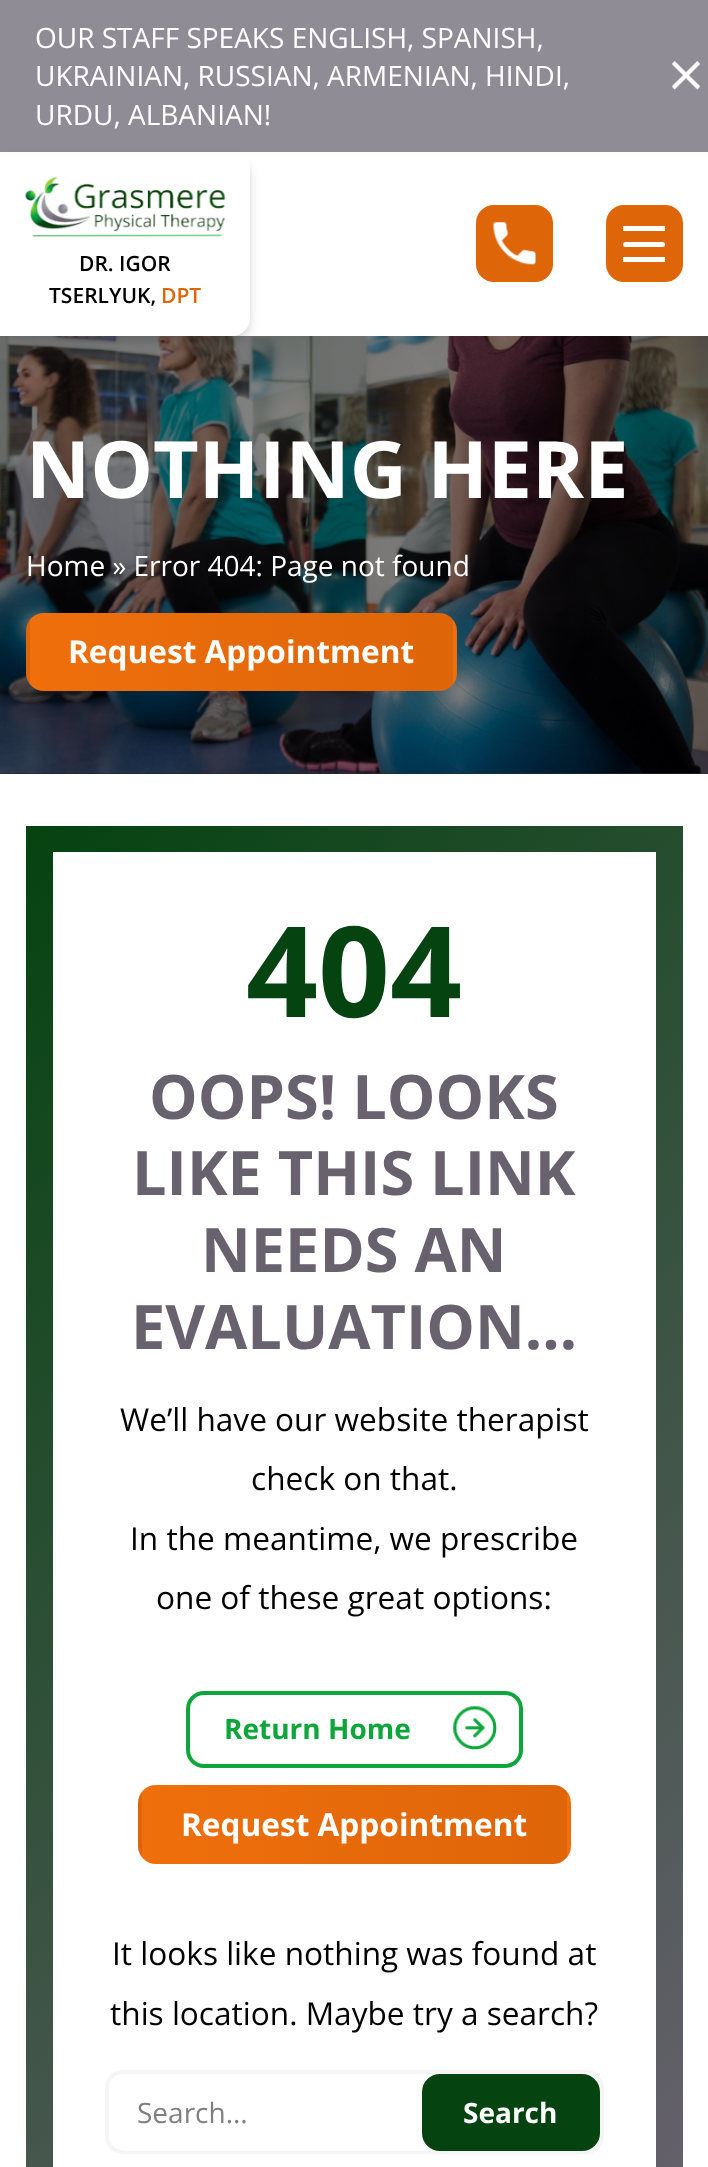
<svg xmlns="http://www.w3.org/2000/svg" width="708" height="2167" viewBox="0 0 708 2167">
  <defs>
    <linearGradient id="g1" gradientUnits="userSpaceOnUse" x1="68" y1="268" x2="641" y2="841"><stop offset="0" stop-color="#032208"/><stop offset="1" stop-color="#343137"/></linearGradient>
    <filter id="blur1" x="-50%" y="-200%" width="200%" height="500%"><feGaussianBlur stdDeviation="5"/></filter>
    <clipPath id="clip1"><rect x="26" y="613" width="431" height="78" rx="18"/></clipPath>
    <linearGradient id="g2" gradientUnits="userSpaceOnUse" x1="-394" y1="652" x2="30" y2="652"><stop offset="0" stop-color="#ef6f0c"/><stop offset="1" stop-color="#de6508"/></linearGradient>
    <linearGradient id="g3" gradientUnits="userSpaceOnUse" x1="30" y1="652" x2="453" y2="652"><stop offset="0" stop-color="#ef6f0c"/><stop offset="1" stop-color="#de6508"/></linearGradient>
    <linearGradient id="g4" gradientUnits="userSpaceOnUse" x1="453" y1="652" x2="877" y2="652"><stop offset="0" stop-color="#ef6f0c"/><stop offset="1" stop-color="#de6508"/></linearGradient>
    <linearGradient id="g5" gradientUnits="userSpaceOnUse" x1="-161" y1="1014" x2="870" y2="2045"><stop offset="0" stop-color="#054310"/><stop offset="1" stop-color="#68616e"/></linearGradient>
    <clipPath id="clip2"><rect x="138" y="1785" width="433" height="79" rx="18"/></clipPath>
    <linearGradient id="g6" gradientUnits="userSpaceOnUse" x1="-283" y1="1824" x2="142" y2="1824"><stop offset="0" stop-color="#ef6f0c"/><stop offset="1" stop-color="#de6508"/></linearGradient>
    <linearGradient id="g7" gradientUnits="userSpaceOnUse" x1="142" y1="1824" x2="567" y2="1824"><stop offset="0" stop-color="#ef6f0c"/><stop offset="1" stop-color="#de6508"/></linearGradient>
    <linearGradient id="g8" gradientUnits="userSpaceOnUse" x1="567" y1="1824" x2="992" y2="1824"><stop offset="0" stop-color="#ef6f0c"/><stop offset="1" stop-color="#de6508"/></linearGradient>
  </defs>
  <rect width="100%" height="100%" fill="#ffffff"/>
  <rect x="0" y="0" width="708" height="152" fill="#908c96"/>
  <text x="35" y="48" font-family="Open Sans" font-size="28" fill="#ffffff">OUR STAFF SPEAKS ENGLISH, SPANISH,</text>
  <text x="35" y="86" font-family="Open Sans" font-size="28" fill="#ffffff">UKRAINIAN, RUSSIAN, ARMENIAN, HINDI,</text>
  <text x="35" y="125" font-family="Open Sans" font-size="28" fill="#ffffff">URDU, ALBANIAN!</text>
  <image x="672" y="61" width="28" height="29" href="img1.png"/>
  <rect x="0" y="773" width="708" height="1" fill="url(#g1)"/>
  <image x="0" y="336" width="708" height="438" href="img4.png"/>
  <rect x="0" y="158" width="250" height="183" rx="18" fill="#000000" fill-opacity="0.16" filter="url(#blur1)"/>
  <path d="M0 152H250V318C250 328 242 336 232 336H0Z" fill="#ffffff"/>
  <image x="24" y="176" width="202" height="61" href="img2.png"/>
  <text x="79" y="271" font-family="Open Sans" font-size="21" font-weight="600" fill="#000000">DR. IGOR</text>
  <text x="49" y="303" font-family="Open Sans" font-size="21" font-weight="600" fill="#000000">TSERLYUK,</text>
  <text x="161" y="303" font-family="Open Sans" font-size="21" font-weight="600" fill="#de6508">DPT</text>
  <rect x="478" y="207" width="73" height="73" rx="16" fill="#de6508" stroke="#de6508" stroke-width="4"/>
  <image x="493" y="222" width="43" height="43" href="img3.png"/>
  <rect x="606" y="205" width="77" height="77" rx="18" fill="#de6508"/>
  <rect x="623" y="242" width="42" height="5" rx="2.5" fill="#ffffff"/>
  <rect x="623" y="226" width="42" height="5" fill="#ffffff"/>
  <rect x="623" y="257" width="42" height="5" fill="#ffffff"/>
  <text x="26" y="498" font-family="Open Sans" font-size="79" font-weight="bold" fill="#ffffff">NOTHING HERE</text>
  <text x="26" y="576" font-family="Open Sans" font-size="28" fill="#ffffff">Home » Error 404: Page not found</text>
  <g clip-path="url(#clip1)">
    <rect x="26" y="613" width="4" height="78" fill="url(#g2)"/>
    <rect x="30" y="613" width="423" height="78" fill="url(#g3)"/>
    <rect x="453" y="613" width="4" height="78" fill="url(#g4)"/>
  </g>
  <text x="68" y="663" font-family="Open Sans" font-size="31.6" font-weight="bold" fill="#ffffff">Request Appointment</text>
  <rect x="26" y="826" width="657" height="1341" fill="url(#g5)"/>
  <rect x="53" y="852" width="603" height="1315" fill="#ffffff"/>
  <text x="246" y="1017" font-family="Open Sans" font-size="126" font-weight="bold" fill="#054310">404</text>
  <text x="149" y="1119" font-family="Open Sans" font-size="61.25" font-weight="bold" fill="#68616e">OOPS! LOOKS</text>
  <text x="132" y="1195" font-family="Open Sans" font-size="61.25" font-weight="bold" fill="#68616e">LIKE THIS LINK</text>
  <text x="201" y="1272" font-family="Open Sans" font-size="61.25" font-weight="bold" fill="#68616e">NEEDS AN</text>
  <text x="131" y="1349" font-family="Open Sans" font-size="61.25" font-weight="bold" fill="#68616e">EVALUATION…</text>
  <text x="120" y="1431" font-family="Open Sans" font-size="31.6" fill="#000000">We’ll have our website therapist</text>
  <text x="251" y="1490" font-family="Open Sans" font-size="31.6" fill="#000000">check on that.</text>
  <text x="130" y="1550" font-family="Open Sans" font-size="31.6" fill="#000000">In the meantime, we prescribe</text>
  <text x="156" y="1609" font-family="Open Sans" font-size="31.6" fill="#000000">one of these great options:</text>
  <rect x="188" y="1693" width="333" height="73" rx="16" fill="none" stroke="#0ea63a" stroke-width="4"/>
  <text x="224" y="1739" font-family="Open Sans" font-size="28" font-weight="bold" fill="#0ea63a">Return Home</text>
  <image x="453" y="1706" width="44" height="44" href="img5.png"/>
  <g clip-path="url(#clip2)">
    <rect x="138" y="1785" width="4" height="79" fill="url(#g6)"/>
    <rect x="142" y="1785" width="425" height="79" fill="url(#g7)"/>
    <rect x="567" y="1785" width="4" height="79" fill="url(#g8)"/>
  </g>
  <text x="181" y="1836" font-family="Open Sans" font-size="31.6" font-weight="bold" fill="#ffffff">Request Appointment</text>
  <text x="112" y="1965" font-family="Open Sans" font-size="31.6" fill="#000000">It looks like nothing was found at</text>
  <text x="110" y="2025" font-family="Open Sans" font-size="31.6" fill="#000000">this location. Maybe try a search?</text>
  <rect x="107" y="2072" width="495" height="80" rx="16" fill="none" stroke="#f5f5f5" stroke-width="4"/>
  <rect x="109" y="2074" width="491" height="77" rx="18" fill="#ffffff"/>
  <text x="137" y="2123" font-family="Open Sans" font-size="28" fill="#808080">Search...</text>
  <rect x="424" y="2076" width="174" height="73" rx="16" fill="#054310" stroke="#054310" stroke-width="4"/>
  <text x="463" y="2123" font-family="Open Sans" font-size="28" font-weight="bold" fill="#ffffff">Search</text>
</svg>
